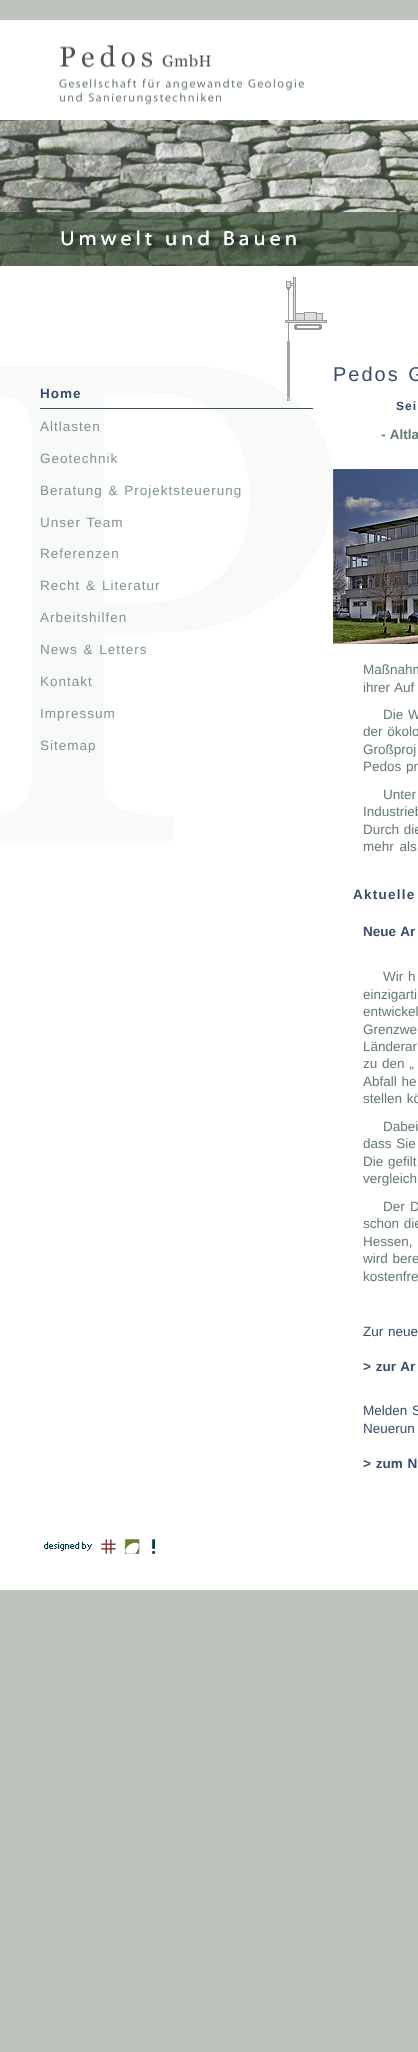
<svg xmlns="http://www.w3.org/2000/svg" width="418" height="2052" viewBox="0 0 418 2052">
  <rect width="100%" height="100%" fill="#bdc4bd"/>
  <rect x="0" y="20" width="418" height="1570" fill="#ffffff"/>
  <image x="59" y="44" width="245" height="61" href="img1.png"/>
  <image x="0" y="120" width="418" height="146" href="img2.png"/>
  <image x="285" y="277" width="42" height="64" href="img3.png"/>
  <image x="0" y="366" width="333" height="475" href="img5.png"/>
  <rect x="287" y="341" width="3" height="60" fill="#a5a5a5"/>
  <image x="287" y="397" width="3" height="4" href="img4.png"/>
  <rect x="40" y="408" width="273" height="1" fill="#374d6c"/>
  <text x="40" y="398" font-family="Liberation Sans" font-size="13.5" font-weight="bold" letter-spacing="1" fill="#374d6c">Home</text>
  <text x="40" y="431" font-family="Liberation Sans" font-size="13.5" letter-spacing="1" fill="#81968f">Altlasten</text>
  <text x="40" y="463" font-family="Liberation Sans" font-size="13.5" letter-spacing="1" fill="#81968f">Geotechnik</text>
  <text x="40" y="495" word-spacing="1" font-family="Liberation Sans" font-size="13.5" letter-spacing="1" fill="#81968f">Beratung &amp; Projektsteuerung</text>
  <text x="40" y="527" word-spacing="1" font-family="Liberation Sans" font-size="13.5" letter-spacing="1" fill="#81968f">Unser Team</text>
  <text x="40" y="558" font-family="Liberation Sans" font-size="13.5" letter-spacing="1" fill="#81968f">Referenzen</text>
  <text x="40" y="590" font-family="Liberation Sans" font-size="13.5" letter-spacing="1" fill="#81968f">Recht</text>
  <text x="86" y="590" font-family="Liberation Sans" font-size="13.5" letter-spacing="1" fill="#81968f">&amp;</text>
  <text x="102" y="590" font-family="Liberation Sans" font-size="13.5" letter-spacing="1" fill="#81968f">Literatur</text>
  <text x="40" y="622" font-family="Liberation Sans" font-size="13.5" letter-spacing="1" fill="#81968f">Arbeitshilfen</text>
  <text x="40" y="654" word-spacing="1" font-family="Liberation Sans" font-size="13.5" letter-spacing="1" fill="#81968f">News &amp; Letters</text>
  <text x="40" y="686" font-family="Liberation Sans" font-size="13.5" letter-spacing="1" fill="#81968f">Kontakt</text>
  <text x="40" y="718" font-family="Liberation Sans" font-size="13.5" letter-spacing="1" fill="#81968f">Impressum</text>
  <text x="40" y="750" font-family="Liberation Sans" font-size="13.5" letter-spacing="1" fill="#81968f">Sitemap</text>
  <text x="333" y="381" word-spacing="1" font-family="Liberation Sans" font-size="20" letter-spacing="2" fill="#374d6c">Pedos G</text>
  <text x="396" y="410" word-spacing="1" font-family="Liberation Sans" font-size="12" font-weight="bold" letter-spacing="1" fill="#374d6c">Sei</text>
  <text x="381" y="439" word-spacing="1" font-family="Liberation Sans" font-size="13.5" font-weight="bold" fill="#657a74">- Altla</text>
  <image x="333" y="469" width="85" height="175" href="img6.png"/>
  <text x="363" y="674" word-spacing="1" font-family="Liberation Sans" font-size="13.5" fill="#657a74">Maßnahm</text>
  <text x="363" y="692" word-spacing="1" font-family="Liberation Sans" font-size="13.5" fill="#657a74">ihrer Auf</text>
  <text x="383" y="719" word-spacing="1" font-family="Liberation Sans" font-size="13.5" fill="#657a74">Die W</text>
  <text x="363" y="736" word-spacing="1" font-family="Liberation Sans" font-size="13.5" fill="#657a74">der ökolo</text>
  <text x="363" y="754" word-spacing="1" font-family="Liberation Sans" font-size="13.5" fill="#657a74">Großproj</text>
  <text x="363" y="771" word-spacing="1" font-family="Liberation Sans" font-size="13.5" fill="#657a74">Pedos pr</text>
  <text x="383" y="799" word-spacing="1" font-family="Liberation Sans" font-size="13.5" fill="#657a74">Unter</text>
  <text x="363" y="816" word-spacing="1" font-family="Liberation Sans" font-size="13.5" fill="#657a74">Industrieb</text>
  <text x="363" y="834" word-spacing="1" font-family="Liberation Sans" font-size="13.5" fill="#657a74">Durch die</text>
  <text x="363" y="851" word-spacing="2" font-family="Liberation Sans" font-size="13.5" fill="#657a74">mehr als</text>
  <text x="353" y="899" font-family="Liberation Sans" font-size="13.5" font-weight="bold" letter-spacing="1.25" fill="#374d6c">Aktuelle</text>
  <text x="363" y="936" word-spacing="1" font-family="Liberation Sans" font-size="13.5" font-weight="bold" fill="#374d6c">Neue Ar</text>
  <text x="383" y="981" word-spacing="1" font-family="Liberation Sans" font-size="13.5" fill="#657a74">Wir h</text>
  <text x="363" y="999" word-spacing="1" font-family="Liberation Sans" font-size="13.5" fill="#657a74">einzigarti</text>
  <text x="363" y="1016" word-spacing="1" font-family="Liberation Sans" font-size="13.5" fill="#657a74">entwickel</text>
  <text x="363" y="1034" word-spacing="2" font-family="Liberation Sans" font-size="13.5" fill="#657a74">Grenzwe</text>
  <text x="363" y="1051" word-spacing="1" font-family="Liberation Sans" font-size="13.5" fill="#657a74">Länderar</text>
  <text x="363" y="1068" word-spacing="1" font-family="Liberation Sans" font-size="13.5" fill="#657a74">zu den „</text>
  <text x="363" y="1086" word-spacing="1" font-family="Liberation Sans" font-size="13.5" fill="#657a74">Abfall he</text>
  <text x="363" y="1103" word-spacing="1" font-family="Liberation Sans" font-size="13.5" fill="#657a74">stellen kö</text>
  <text x="383" y="1131" word-spacing="1" font-family="Liberation Sans" font-size="13.5" fill="#657a74">Dabei</text>
  <text x="363" y="1148" word-spacing="1" font-family="Liberation Sans" font-size="13.5" fill="#657a74">dass Sie</text>
  <text x="363" y="1166" word-spacing="1" font-family="Liberation Sans" font-size="13.5" fill="#657a74">Die gefilt</text>
  <text x="363" y="1183" word-spacing="1" font-family="Liberation Sans" font-size="13.5" fill="#657a74">vergleich</text>
  <text x="383" y="1211" font-family="Liberation Sans" font-size="13.5" fill="#657a74">Der</text>
  <text x="410" y="1211" word-spacing="1" font-family="Liberation Sans" font-size="13.5" fill="#657a74">D</text>
  <text x="363" y="1228" word-spacing="1" font-family="Liberation Sans" font-size="13.5" fill="#657a74">schon die</text>
  <text x="363" y="1246" font-family="Liberation Sans" font-size="13.5" fill="#657a74">Hessen,</text>
  <text x="363" y="1263" word-spacing="1" font-family="Liberation Sans" font-size="13.5" fill="#657a74">wird bere</text>
  <text x="363" y="1281" font-family="Liberation Sans" font-size="13.5" fill="#657a74">kostenfre</text>
  <text x="363" y="1336" word-spacing="1" font-family="Liberation Sans" font-size="13.5" fill="#374d6c">Zur neue</text>
  <text x="363" y="1371" word-spacing="1" font-family="Liberation Sans" font-size="13.5" font-weight="bold" fill="#374d6c">&gt; zur Ar</text>
  <text x="363" y="1415" word-spacing="1" font-family="Liberation Sans" font-size="13.5" fill="#374d6c">Melden S</text>
  <text x="363" y="1433" word-spacing="1" font-family="Liberation Sans" font-size="13.5" fill="#374d6c">Neuerun</text>
  <text x="363" y="1468" word-spacing="1" font-family="Liberation Sans" font-size="13.5" font-weight="bold" fill="#374d6c">&gt; zum N</text>
  <image x="44" y="1539" width="111" height="15" href="img7.png"/>
</svg>
